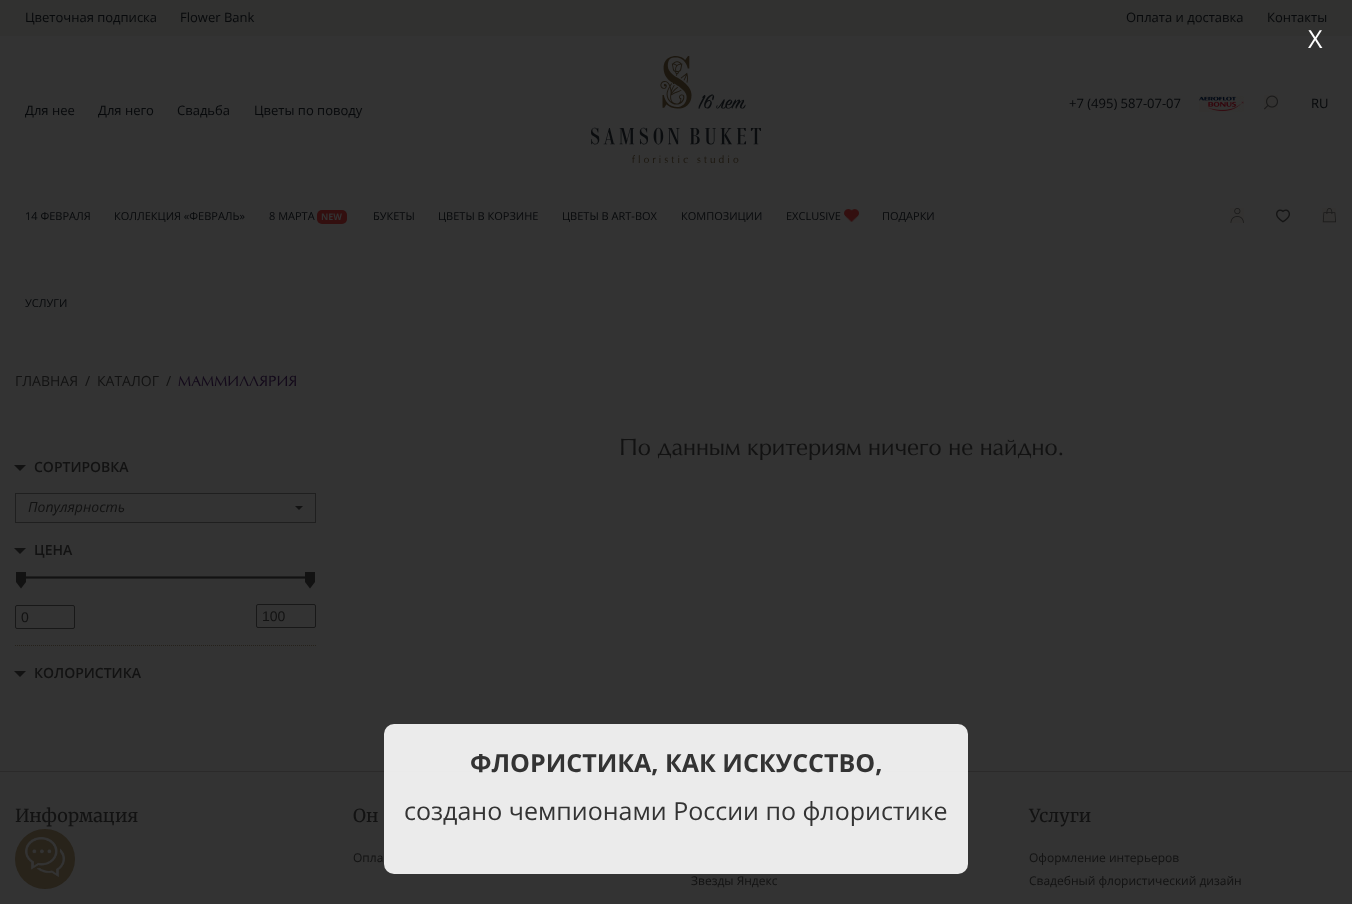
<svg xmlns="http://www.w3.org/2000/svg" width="1352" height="904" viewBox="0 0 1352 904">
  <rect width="100%" height="100%" fill="#333333"/>
  <rect x="0" y="0" width="1352" height="36" fill="#313130"/>
  <text x="25" y="22" font-family="Open Sans" font-size="13" fill="#07090b">Цветочная подписка</text>
  <text x="180" y="22" font-family="Open Sans" font-size="13" fill="#07090b">Flower Bank</text>
  <text x="1126" y="22" font-family="Open Sans" font-size="13" fill="#07090b">Оплата и доставка</text>
  <text x="1267" y="22" font-family="Open Sans" font-size="13" fill="#07090b">Контакты</text>
  <text x="25" y="115" font-family="Open Sans" font-size="13" fill="#07090b">Для нее</text>
  <text x="98" y="115" font-family="Open Sans" font-size="13" fill="#07090b">Для него</text>
  <text x="177" y="115" font-family="Open Sans" font-size="13" fill="#07090b">Свадьба</text>
  <text x="254" y="115" font-family="Open Sans" font-size="13" fill="#07090b">Цветы по поводу</text>
  <image x="591" y="56" width="170" height="107" href="img1.png"/>
  <text x="1069" y="108" font-family="Open Sans" font-size="13" fill="#07090b">+7 (495) 587-07-07</text>
  <image x="1199" y="96" width="45" height="16" href="img2.png"/>
  <image x="1264" y="95" width="14" height="15" href="img3.png"/>
  <text x="1311" y="108" font-family="Open Sans" font-size="13" fill="#07090b">RU</text>
  <text x="25" y="220" font-family="Open Sans" font-size="11" fill="#07090b">14 ФЕВРАЛЯ</text>
  <text x="114" y="220" font-family="Open Sans" font-size="11" fill="#07090b">КОЛЛЕКЦИЯ «ФЕВРАЛЬ»</text>
  <text x="269" y="220" font-family="Open Sans" font-size="11" fill="#07090b">8 МАРТА</text>
  <rect x="317" y="210" width="30" height="14" rx="5" fill="#330f0f"/>
  <text x="321" y="220" font-family="Open Sans" font-size="9" font-weight="bold" fill="#333333">NEW</text>
  <text x="373" y="220" font-family="Open Sans" font-size="11" fill="#07090b">БУКЕТЫ</text>
  <text x="438" y="220" font-family="Open Sans" font-size="11" fill="#07090b">ЦВЕТЫ В КОРЗИНЕ</text>
  <text x="562" y="220" font-family="Open Sans" font-size="11" fill="#07090b">ЦВЕТЫ В ART-BOX</text>
  <text x="681" y="220" font-family="Open Sans" font-size="11" fill="#07090b">КОМПОЗИЦИИ</text>
  <text x="786" y="220" font-family="Open Sans" font-size="11" fill="#07090b">EXCLUSIVE</text>
  <image x="844" y="209" width="15" height="13" href="img4.png"/>
  <text x="882" y="220" font-family="Open Sans" font-size="11" fill="#07090b">ПОДАРКИ</text>
  <text x="25" y="307" font-family="Open Sans" font-size="11" fill="#07090b">УСЛУГИ</text>
  <image x="1230" y="208" width="14" height="15" href="img5.png"/>
  <image x="1276" y="209" width="14" height="14" href="img6.png"/>
  <image x="1322" y="208" width="14" height="15" href="img7.png"/>
  <text x="15" y="386" font-family="Open Sans" font-size="14" fill="#121212">ГЛАВНАЯ</text>
  <text x="85" y="386" font-family="Open Sans" font-size="14" fill="#121212">/</text>
  <text x="97" y="386" font-family="Open Sans" font-size="14" fill="#121212">КАТАЛОГ</text>
  <text x="166" y="386" font-family="Open Sans" font-size="14" fill="#121212">/</text>
  <text x="178" y="386" font-family="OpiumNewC" font-size="14" fill="#13091a">МАММИЛЛЯРИЯ</text>
  <text x="619" y="455" font-family="OpiumNewC" font-size="22.5" fill="#121212">По данным критериям ничего не найдно.</text>
  <path d="M14 465H26L20 471Z" fill="#121212"/>
  <text x="34" y="472" font-family="Open Sans" font-size="14" font-weight="600" fill="#121212">СОРТИРОВКА</text>
  <rect x="15.5" y="493.5" width="300" height="29" fill="none" stroke="#1f1f1f"/>
  <text x="28" y="512" font-family="Open Sans" font-size="14" font-style="italic" fill="#121212">Популярность</text>
  <path d="M295 506H303L299 510Z" fill="#121212"/>
  <path d="M14 548H26L20 554Z" fill="#121212"/>
  <text x="34" y="555" font-family="Open Sans" font-size="14" font-weight="600" fill="#121212">ЦЕНА</text>
  <rect x="21" y="576" width="289" height="3" fill="#1f1f1f"/>
  <rect x="21" y="577" width="289" height="1" fill="#121212"/>
  <rect x="16" y="572" width="10" height="10" fill="#121212"/>
  <path d="M16 582H26L21 588.5Z" fill="#121212"/>
  <rect x="305" y="572" width="10" height="10" fill="#121212"/>
  <path d="M305 582H315L310 588.5Z" fill="#121212"/>
  <rect x="15.5" y="605.5" width="59" height="23" rx="1.5" fill="none" stroke="#181818"/>
  <text x="21" y="622" font-family="Liberation Sans" font-size="14" fill="#121212">0</text>
  <rect x="256.5" y="604.5" width="59" height="23" rx="1.5" fill="none" stroke="#181818"/>
  <text x="262" y="621" font-family="Liberation Sans" font-size="14" fill="#121212">100</text>
  <path d="M15 645.5H316" fill="none" stroke="#25211a" stroke-dasharray="1 1"/>
  <path d="M14 671H26L20 677Z" fill="#121212"/>
  <text x="34" y="678" font-family="Open Sans" font-size="14" font-weight="600" fill="#121212">КОЛОРИСТИКА</text>
  <rect x="0" y="771" width="1352" height="1" fill="#2b2a2a"/>
  <text x="15" y="822" font-family="Merriweather" font-size="18" fill="#121212">Информация</text>
  <text x="353" y="822" font-family="Merriweather" font-size="18" fill="#121212">Он</text>
  <text x="353" y="862" font-family="Open Sans" font-size="12" fill="#121212">Опла</text>
  <text x="691" y="885" font-family="Open Sans" font-size="12" fill="#121212">Звезды Яндекс</text>
  <text x="1029" y="822" font-family="Merriweather" font-size="18" fill="#121212">Услуги</text>
  <text x="1029" y="862" font-family="Open Sans" font-size="12" fill="#121212">Оформление интерьеров</text>
  <text x="1029" y="885" font-family="Open Sans" font-size="12" fill="#121212">Свадебный флористический дизайн</text>
  <text x="1308" y="48" font-family="Open Sans" font-size="25" fill="#ffffff">X</text>
  <rect x="384" y="724" width="584" height="150" rx="10" fill="#ffffff" fill-opacity="0.9"/>
  <text x="470" y="772" font-family="Open Sans" font-size="25" font-weight="bold" fill="#333333">ФЛОРИСТИКА, КАК ИСКУССТВО,</text>
  <text x="404" y="820" font-family="Open Sans" font-size="25" fill="#333333">создано чемпионами России по флористике</text>
  <circle cx="45" cy="859" r="30" fill="#28231a"/>
  <image x="25" y="837" width="40" height="40" href="img8.png"/>
</svg>
